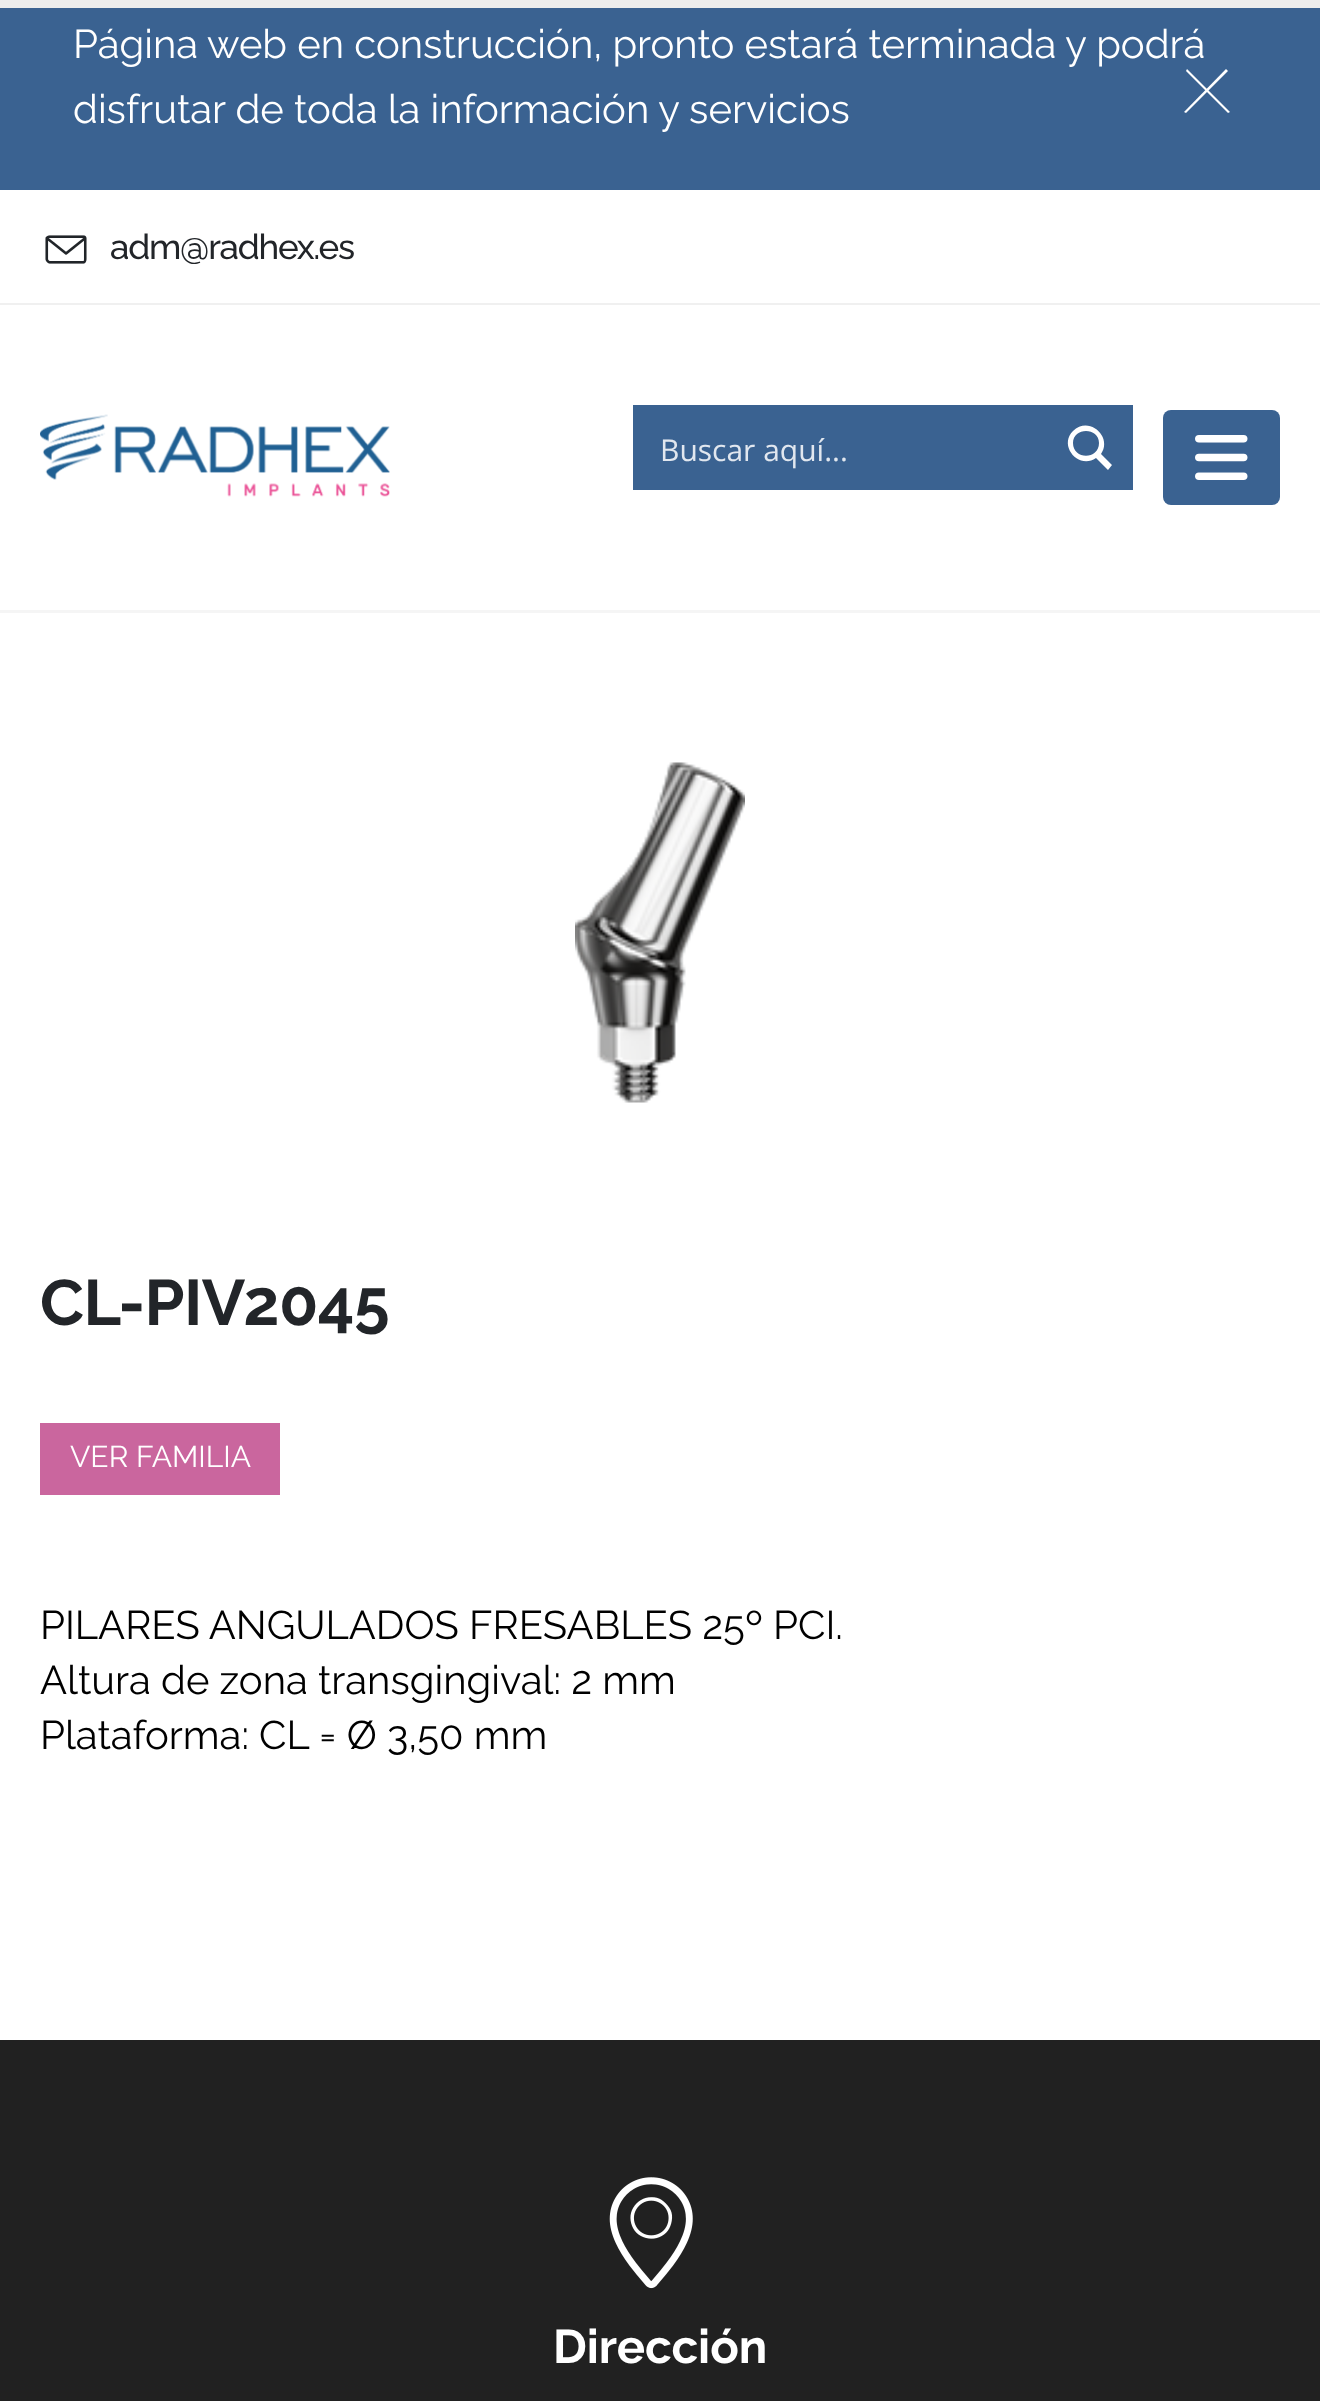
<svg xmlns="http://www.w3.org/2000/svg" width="1320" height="2401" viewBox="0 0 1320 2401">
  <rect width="100%" height="100%" fill="#ffffff"/>
  <rect x="0" y="0" width="1320" height="8" fill="#ededed"/>
  <rect x="0" y="8" width="1320" height="182" fill="#3a6291"/>
  <text x="73" y="58" font-family="Raleway" font-size="40" fill="#ffffff">Página web en construcción, pronto estará terminada y podrá</text>
  <text x="73" y="123" font-family="Raleway" font-size="40" fill="#ffffff">disfrutar de toda la información y servicios</text>
  <path d="M1187 69L1230 112L1228 113L1186 71Z" fill="#ffffff"/>
  <path d="M1226 69L1228 71L1186 113L1184 112Z" fill="#ffffff"/>
  <rect x="0" y="303" width="1320" height="2" fill="#f0f0f0"/>
  <image x="45" y="235" width="42" height="29" href="img1.png"/>
  <text x="110" y="259" font-family="Raleway" font-size="35" font-weight="500" letter-spacing="-1.25" fill="#222529">adm@radhex.es</text>
  <rect x="0" y="610" width="1320" height="3" fill="#f5f5f5"/>
  <image x="40" y="414" width="350" height="83" href="img2.png"/>
  <rect x="633" y="405" width="500" height="85" fill="#3a6291"/>
  <text x="660" y="461" font-family="Open Sans" font-size="30" fill="#e1e7ef">Buscar aquí...</text>
  <path d="M1112 465L1101 454C1113 437 1089 415 1073 431C1058 446 1079 470 1096 458L1108 470ZM1073 443C1073 427 1099 427 1099 443C1099 460 1073 460 1073 443Z" fill="#ffffff"/>
  <rect x="1163" y="410" width="117" height="95" rx="8" fill="#3a6291"/>
  <image x="1195" y="435" width="53" height="45" href="img3.png"/>
  <image x="575" y="762" width="170" height="341" href="img4.png"/>
  <text x="40" y="1325" font-family="Raleway" font-size="64.25" font-weight="bold" letter-spacing="-0.6" fill="#222529">CL-PIV2045</text>
  <rect x="40" y="1423" width="240" height="72" fill="#ca669e"/>
  <text x="70" y="1467" font-family="Raleway" font-size="30" fill="#ffffff">VER FAMILIA</text>
  <text x="40" y="1639" font-family="Raleway" font-size="40" fill="#000000">PILARES ANGULADOS FRESABLES 25º PCI.</text>
  <text x="40" y="1694" font-family="Raleway" font-size="40" fill="#000000">Altura de zona transgingival: 2 mm</text>
  <text x="40" y="1749" font-family="Raleway" font-size="40" fill="#000000">Plataforma: CL = Ø 3,50 mm</text>
  <rect x="0" y="2040" width="1320" height="361" fill="#212121"/>
  <image x="609" y="2177" width="84" height="112" href="img5.png"/>
  <text x="553" y="2363" font-family="Raleway" font-size="47.25" font-weight="bold" fill="#ffffff">Dirección</text>
</svg>
